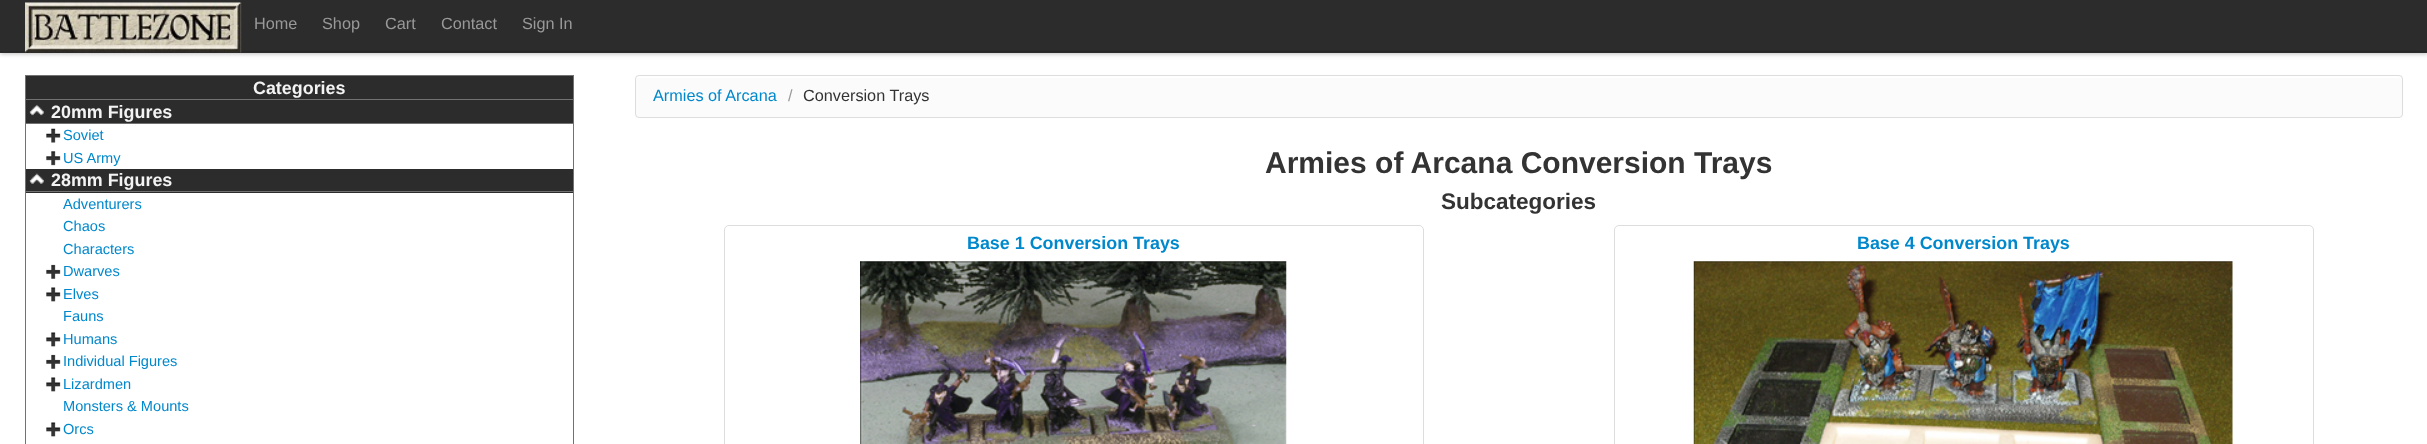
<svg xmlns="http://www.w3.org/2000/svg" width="2427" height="444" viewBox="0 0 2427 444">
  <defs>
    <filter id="blur1" x="-50%" y="-200%" width="200%" height="500%"><feGaussianBlur stdDeviation="2"/></filter>
  </defs>
  <rect width="100%" height="100%" fill="#ffffff"/>
  <rect x="0" y="1" width="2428" height="53" fill="#000000" fill-opacity="0.25" filter="url(#blur1)"/>
  <rect x="0" y="0" width="2427" height="53" fill="#2c2c2c"/>
  <rect x="0" y="51" width="2427" height="1" fill="#282828"/>
  <image x="25" y="2" width="217" height="51" href="img1.png"/>
  <text x="254" y="29" font-family="Liberation Sans" font-size="16.25" fill="#999999">Home</text>
  <text x="322" y="29" font-family="Liberation Sans" font-size="16.25" fill="#999999">Shop</text>
  <text x="385" y="29" font-family="Liberation Sans" font-size="16.25" fill="#999999">Cart</text>
  <text x="441" y="29" font-family="Liberation Sans" font-size="16.25" fill="#999999">Contact</text>
  <text x="522" y="29" font-family="Liberation Sans" font-size="16.25" fill="#999999">Sign In</text>
  <rect x="25.5" y="75.5" width="548" height="24" fill="#2c2c2c" stroke="#727272"/>
  <text x="253" y="94" font-family="Liberation Sans" font-size="17.9" font-weight="bold" fill="#f3f3f3">Categories</text>
  <rect x="573" y="100" width="1" height="344" fill="#727272"/>
  <rect x="25" y="100" width="1" height="344" fill="#727272"/>
  <rect x="26" y="100" width="547" height="23" fill="#2c2c2c"/>
  <rect x="26" y="123" width="547" height="1" fill="#727272"/>
  <image x="29" y="104" width="15" height="12" href="img2.png"/>
  <text x="51" y="118" font-family="Liberation Sans" font-size="17.9" font-weight="bold" fill="#f3f3f3">20mm Figures</text>
  <image x="46" y="128" width="15" height="15" href="img3.png"/>
  <text x="63" y="140" font-family="Liberation Sans" font-size="14.6" fill="#0088cc">Soviet</text>
  <image x="46" y="151" width="15" height="15" href="img4.png"/>
  <text x="63" y="163" font-family="Liberation Sans" font-size="14.6" fill="#0088cc">US Army</text>
  <rect x="26" y="169" width="547" height="24" fill="#2c2c2c"/>
  <rect x="26" y="191" width="547" height="1" fill="#727272"/>
  <image x="29" y="173" width="15" height="11" href="img5.png"/>
  <text x="51" y="186" font-family="Liberation Sans" font-size="17.9" font-weight="bold" fill="#f3f3f3">28mm Figures</text>
  <text x="63" y="209" font-family="Liberation Sans" font-size="14.6" fill="#0088cc">Adventurers</text>
  <text x="63" y="231" font-family="Liberation Sans" font-size="14.6" fill="#0088cc">Chaos</text>
  <text x="63" y="254" font-family="Liberation Sans" font-size="14.6" fill="#0088cc">Characters</text>
  <image x="46" y="264" width="15" height="15" href="img6.png"/>
  <text x="63" y="276" font-family="Liberation Sans" font-size="14.6" fill="#0088cc">Dwarves</text>
  <image x="46" y="287" width="15" height="15" href="img7.png"/>
  <text x="63" y="299" font-family="Liberation Sans" font-size="14.6" fill="#0088cc">Elves</text>
  <text x="63" y="321" font-family="Liberation Sans" font-size="14.6" fill="#0088cc">Fauns</text>
  <image x="46" y="332" width="15" height="15" href="img8.png"/>
  <text x="63" y="344" font-family="Liberation Sans" font-size="14.6" fill="#0088cc">Humans</text>
  <image x="46" y="354" width="15" height="15" href="img6.png"/>
  <text x="63" y="366" font-family="Liberation Sans" font-size="14.6" fill="#0088cc">Individual Figures</text>
  <image x="46" y="377" width="15" height="15" href="img8.png"/>
  <text x="63" y="389" font-family="Liberation Sans" font-size="14.6" fill="#0088cc">Lizardmen</text>
  <text x="63" y="411" font-family="Liberation Sans" font-size="14.6" fill="#0088cc">Monsters &amp; Mounts</text>
  <image x="46" y="422" width="15" height="15" href="img8.png"/>
  <text x="63" y="434" font-family="Liberation Sans" font-size="14.6" fill="#0088cc">Orcs</text>
  <rect x="635" y="75" width="1768" height="43" rx="4" fill="#fbfbfb"/>
  <path d="M639 78H2399C2400 78 2401 79 2401 80V78C2401 77 2400 76 2398 76H638C637 76 636 77 636 78V80C636 79 637 78 639 78Z" fill="#ffffff"/>
  <rect x="635.5" y="75.5" width="1767" height="42" rx="3.5" fill="none" stroke="#dddddd"/>
  <text x="653" y="101" font-family="Liberation Sans" font-size="16.25" fill="#0088cc">Armies of Arcana</text>
  <text x="788" y="101" font-family="Liberation Sans" font-size="16.25" fill="#999999">/</text>
  <text x="803" y="101" font-family="Liberation Sans" font-size="16.25" fill="#333333">Conversion Trays</text>
  <text x="1265" y="173" font-family="Liberation Sans" font-size="30" font-weight="bold" fill="#333333">Armies of Arcana Conversion Trays</text>
  <text x="1441" y="209" font-family="Liberation Sans" font-size="22.5" font-weight="bold" fill="#333333">Subcategories</text>
  <rect x="724.5" y="225.5" width="699" height="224" rx="4.5" fill="none" stroke="#dddddd"/>
  <text x="967" y="249" font-family="Liberation Sans" font-size="17.9" font-weight="bold" fill="#0088cc">Base 1 Conversion Trays</text>
  <image x="860" y="261" width="427" height="183" href="img9.png"/>
  <rect x="1614.5" y="225.5" width="699" height="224" rx="4.5" fill="none" stroke="#dddddd"/>
  <text x="1857" y="249" font-family="Liberation Sans" font-size="17.9" font-weight="bold" fill="#0088cc">Base 4 Conversion Trays</text>
  <image x="1693" y="261" width="540" height="183" href="img10.png"/>
</svg>
